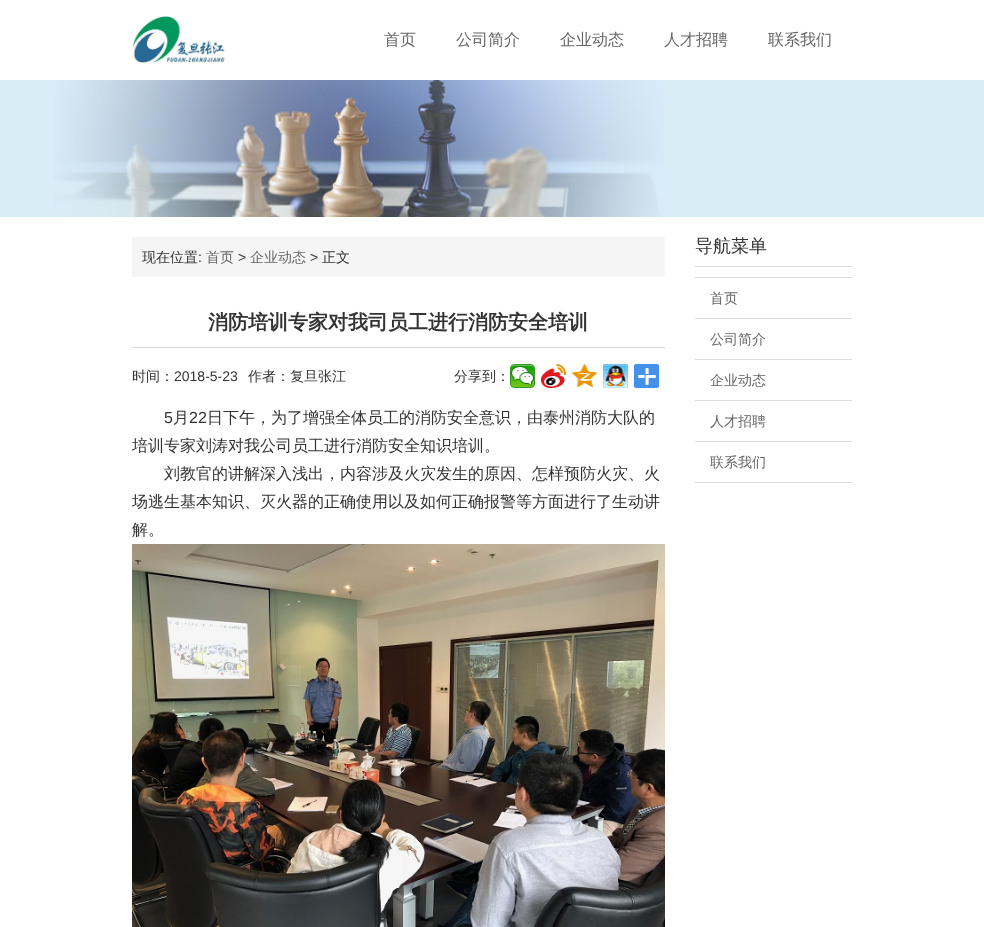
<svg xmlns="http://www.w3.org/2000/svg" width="984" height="927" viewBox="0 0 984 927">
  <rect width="100%" height="100%" fill="#ffffff"/>
  <image x="132" y="16" width="94" height="48" href="img1.png"/>
  <text x="384" y="45" font-family="WenQuanYi Zen Hei" font-size="16" font-weight="500" fill="#666666">首页</text>
  <text x="456" y="45" font-family="WenQuanYi Zen Hei" font-size="16" font-weight="500" fill="#666666">公司简介</text>
  <text x="560" y="45" font-family="WenQuanYi Zen Hei" font-size="16" font-weight="500" fill="#666666">企业动态</text>
  <text x="664" y="45" font-family="WenQuanYi Zen Hei" font-size="16" font-weight="500" fill="#666666">人才招聘</text>
  <text x="768" y="45" font-family="WenQuanYi Zen Hei" font-size="16" font-weight="500" fill="#666666">联系我们</text>
  <rect x="0" y="80" width="984" height="137" fill="#d9edf7"/>
  <image x="54" y="80" width="610" height="137" href="img2.png"/>
  <rect x="132" y="237" width="533" height="40" fill="#f5f5f5"/>
  <text x="142" y="262" font-family="WenQuanYi Zen Hei" font-size="14" font-weight="500" fill="#333333">现在位置</text>
  <text x="198" y="262" font-family="Liberation Sans" font-size="14" fill="#333333">:</text>
  <text x="206" y="262" font-family="WenQuanYi Zen Hei" font-size="14" font-weight="500" fill="#666666">首页</text>
  <text x="238" y="262" font-family="Liberation Sans" font-size="14" fill="#333333">&gt;</text>
  <text x="250" y="262" font-family="WenQuanYi Zen Hei" font-size="14" font-weight="500" fill="#666666">企业动态</text>
  <text x="310" y="262" font-family="Liberation Sans" font-size="14" fill="#333333">&gt;</text>
  <text x="322" y="262" font-family="WenQuanYi Zen Hei" font-size="14" font-weight="500" fill="#333333">正文</text>
  <rect x="132" y="347" width="533" height="1" fill="#dbdbdb"/>
  <text x="208" y="329" font-family="WenQuanYi Zen Hei" font-size="20" font-weight="bold" fill="#333333">消防培训专家对我司员工进行消防安全培训</text>
  <text x="132" y="381" font-family="WenQuanYi Zen Hei" font-size="14" font-weight="500" fill="#333333">时间：</text>
  <text x="174" y="381" font-family="Liberation Sans" font-size="14" fill="#333333">2018-5-23</text>
  <text x="248" y="381" font-family="WenQuanYi Zen Hei" font-size="14" font-weight="500" fill="#333333">作者：复旦张江</text>
  <text x="454" y="381" font-family="WenQuanYi Zen Hei" font-size="14" font-weight="500" fill="#333333">分享到：</text>
  <image x="510" y="364" width="25" height="24" href="img3.png"/>
  <image x="541" y="364" width="25" height="24" href="img4.png"/>
  <image x="572" y="364" width="25" height="23" href="img5.png"/>
  <image x="603" y="364" width="25" height="24" href="img6.png"/>
  <image x="634" y="364" width="25" height="24" href="img7.png"/>
  <text x="164" y="423" font-family="Liberation Sans" font-size="16" fill="#333333">5</text>
  <text x="173" y="423" font-family="WenQuanYi Zen Hei" font-size="16" font-weight="500" fill="#333333">月</text>
  <text x="189" y="423" font-family="Liberation Sans" font-size="16" fill="#333333">22</text>
  <text x="207" y="423" font-family="WenQuanYi Zen Hei" font-size="16" font-weight="500" fill="#333333">日下午，为了增强全体员工的消防安全意识，由泰州消防大队的</text>
  <text x="132" y="451" font-family="WenQuanYi Zen Hei" font-size="16" font-weight="500" fill="#333333">培训专家刘涛对我公司员工进行消防安全知识培训。</text>
  <text x="164" y="479" font-family="WenQuanYi Zen Hei" font-size="16" font-weight="500" fill="#333333">刘教官的讲解深入浅出，内容涉及火灾发生的原因、怎样预防火灾、火</text>
  <text x="132" y="507" font-family="WenQuanYi Zen Hei" font-size="16" font-weight="500" fill="#333333">场逃生基本知识、灭火器的正确使用以及如何正确报警等方面进行了生动讲</text>
  <text x="132" y="535" font-family="WenQuanYi Zen Hei" font-size="16" font-weight="500" fill="#333333">解。</text>
  <image x="132" y="544" width="533" height="383" href="img8.png"/>
  <rect x="695" y="266" width="157" height="1" fill="#dcdcdc"/>
  <text x="695" y="252" font-family="WenQuanYi Zen Hei" font-size="18" font-weight="500" fill="#333333">导航菜单</text>
  <rect x="695" y="277" width="157" height="1" fill="#dddddd"/>
  <text x="710" y="303" font-family="WenQuanYi Zen Hei" font-size="14" font-weight="500" fill="#666666">首页</text>
  <rect x="695" y="318" width="157" height="1" fill="#dddddd"/>
  <text x="710" y="344" font-family="WenQuanYi Zen Hei" font-size="14" font-weight="500" fill="#666666">公司简介</text>
  <rect x="695" y="359" width="157" height="1" fill="#dddddd"/>
  <text x="710" y="385" font-family="WenQuanYi Zen Hei" font-size="14" font-weight="500" fill="#666666">企业动态</text>
  <rect x="695" y="400" width="157" height="1" fill="#dddddd"/>
  <text x="710" y="426" font-family="WenQuanYi Zen Hei" font-size="14" font-weight="500" fill="#666666">人才招聘</text>
  <rect x="695" y="441" width="157" height="1" fill="#dddddd"/>
  <rect x="695" y="482" width="157" height="1" fill="#dddddd"/>
  <text x="710" y="467" font-family="WenQuanYi Zen Hei" font-size="14" font-weight="500" fill="#666666">联系我们</text>
</svg>
